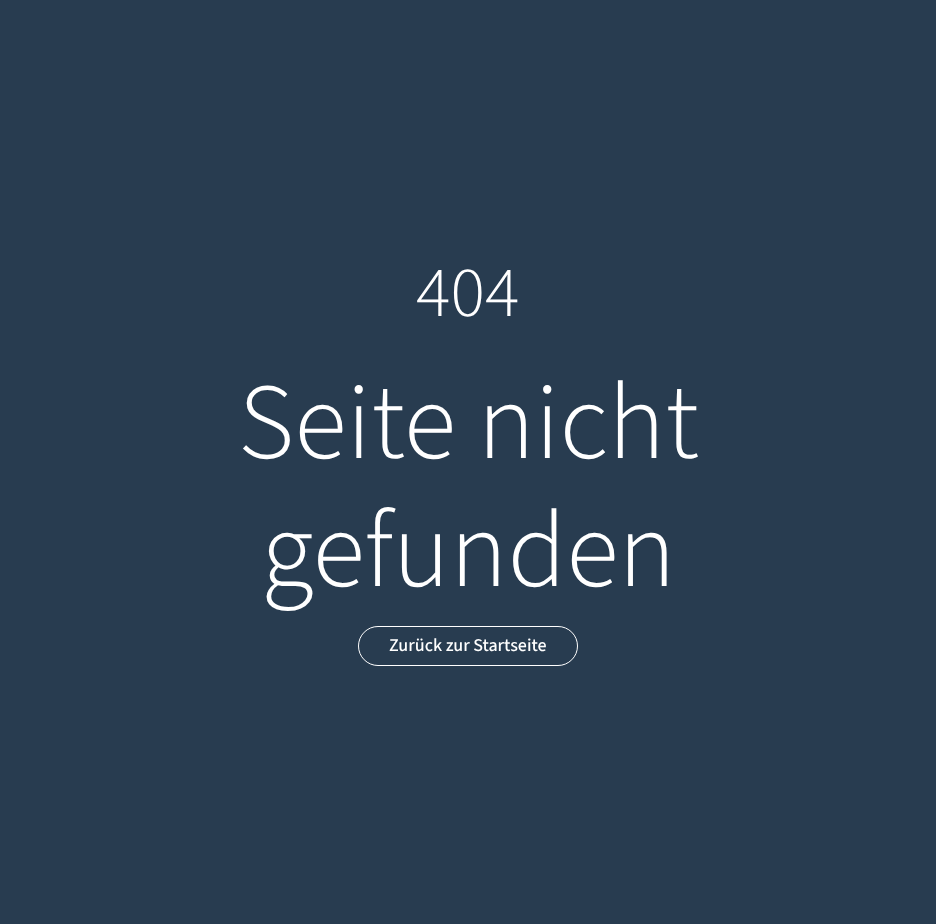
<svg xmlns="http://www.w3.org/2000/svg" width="936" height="924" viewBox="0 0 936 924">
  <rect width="100%" height="100%" fill="#283c50"/>
  <text x="416" y="316" font-family="'Source Sans 3'" font-size="72" font-weight="200" fill="#ffffff">404</text>
  <text x="238" y="458" font-family="'Source Sans 3'" font-size="108" font-weight="200" fill="#ffffff">Seite nicht</text>
  <text x="261" y="586" font-family="'Source Sans 3'" font-size="108" font-weight="200" fill="#ffffff">gefunden</text>
  <rect x="358.5" y="626.5" width="219" height="39" rx="19.5" fill="none" stroke="#ffffff"/>
  <text x="389" y="651" font-family="'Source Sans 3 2'" font-size="18" font-weight="200" fill="#ffffff">Zurück zur Startseite</text>
</svg>
